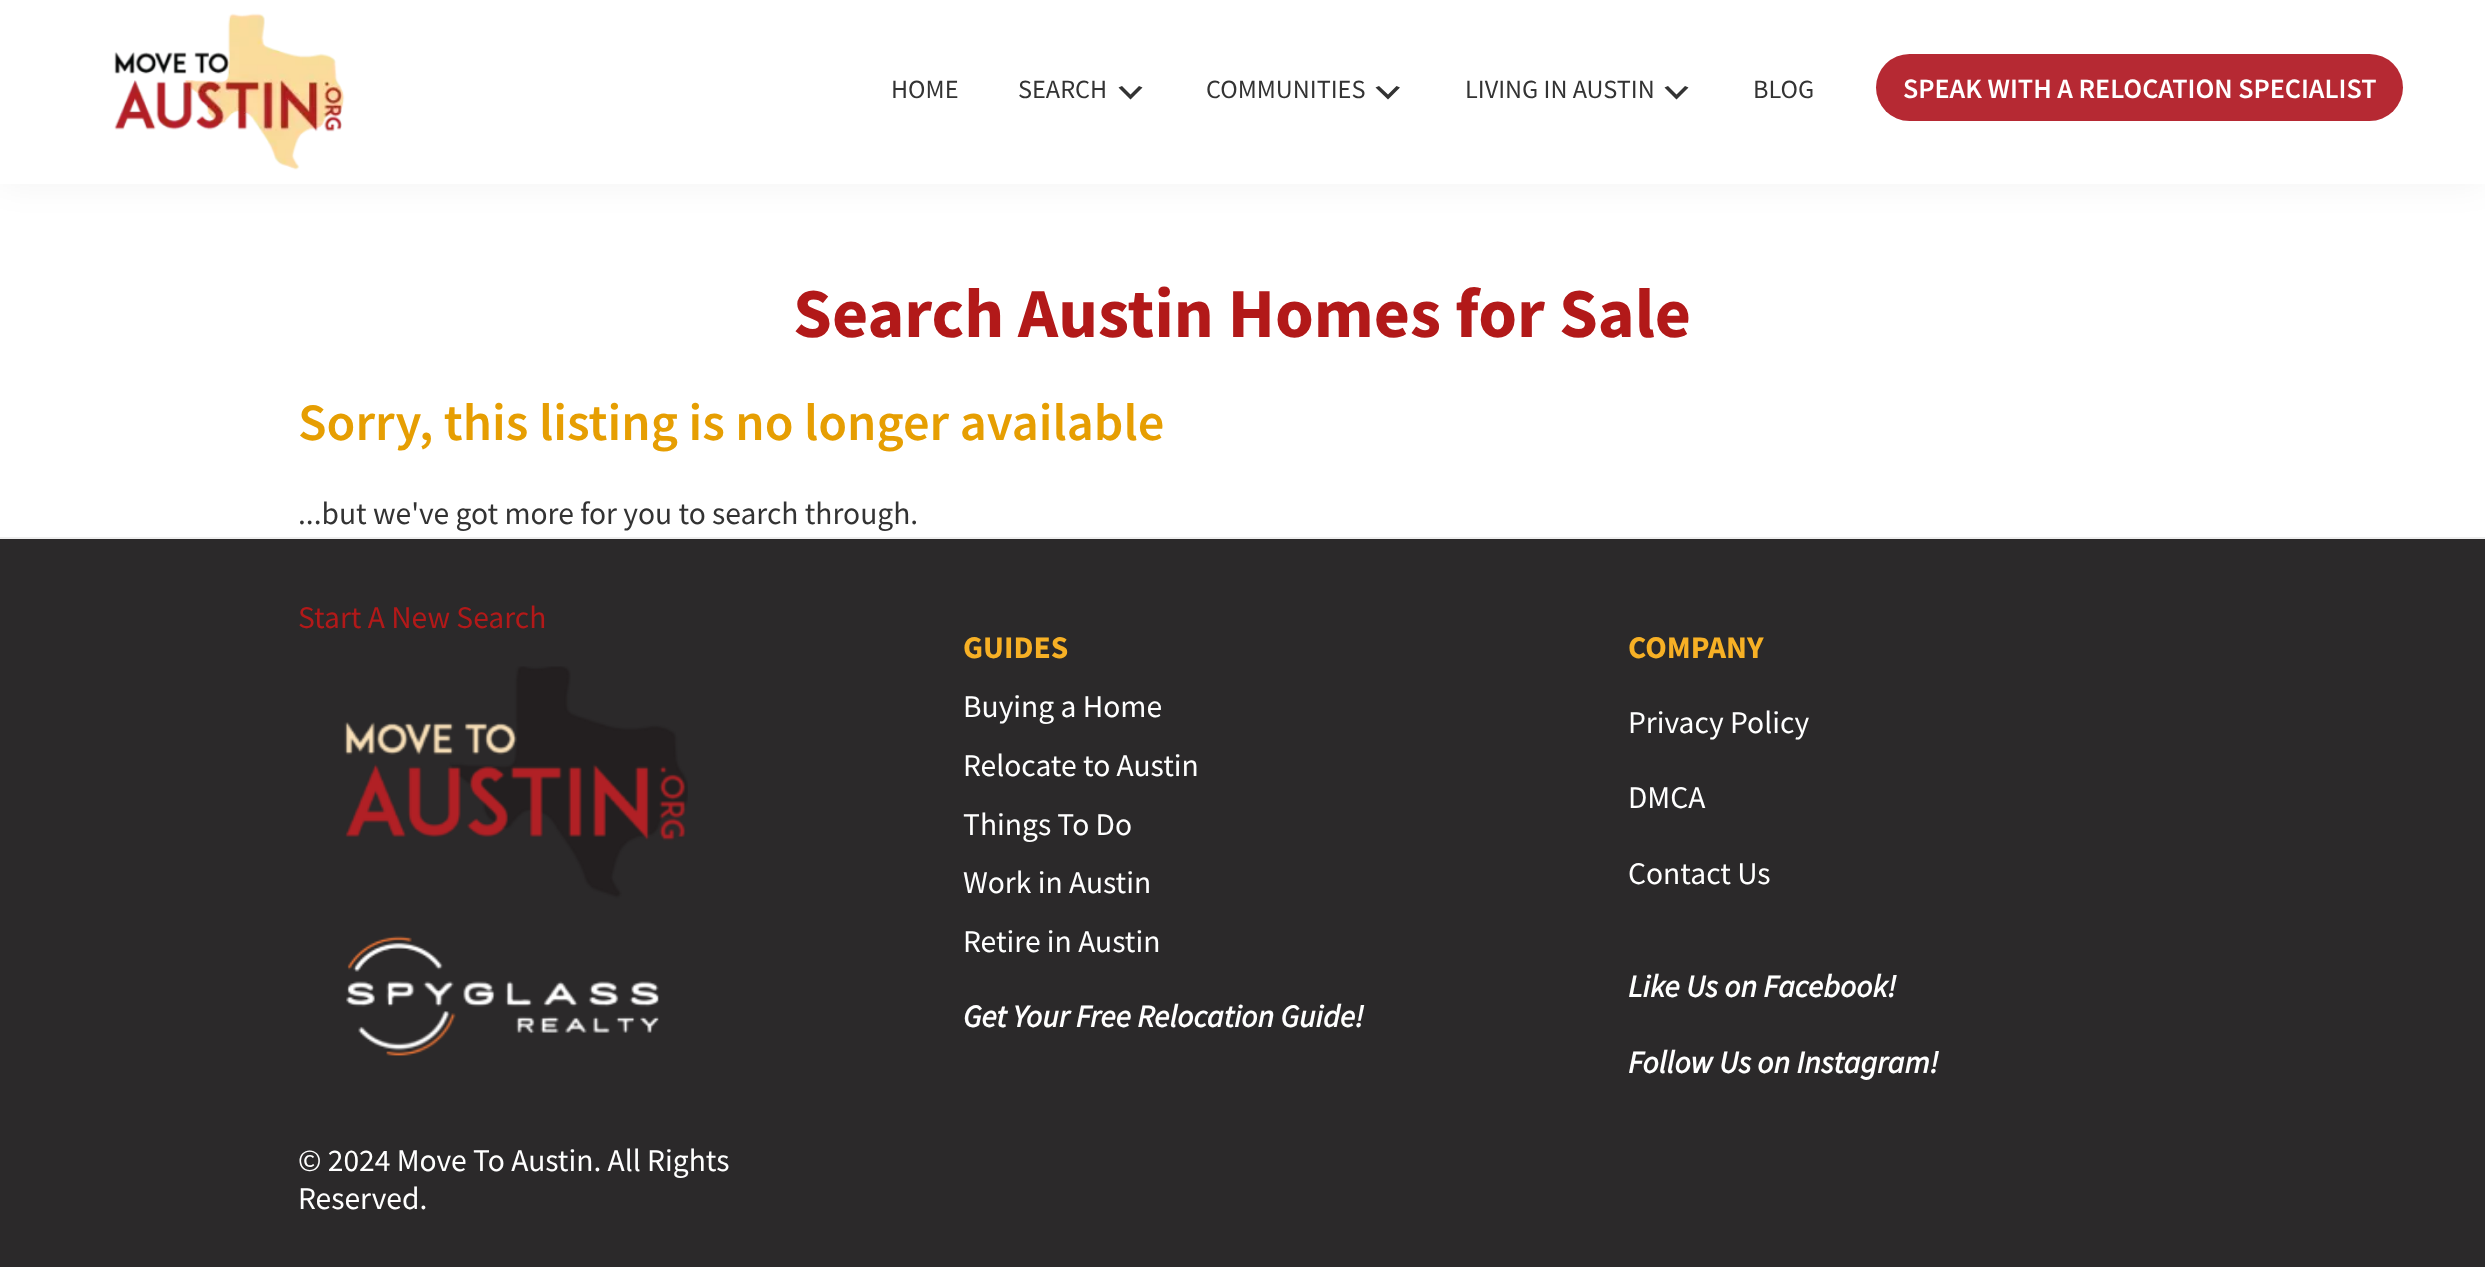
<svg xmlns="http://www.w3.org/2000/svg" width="2485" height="1267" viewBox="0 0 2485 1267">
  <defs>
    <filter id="blur1" x="-50%" y="-200%" width="200%" height="500%"><feGaussianBlur stdDeviation="17.5"/></filter>
  </defs>
  <rect width="100%" height="100%" fill="#ffffff"/>
  <rect x="0" y="0" width="2485" height="184" fill="#000000" fill-opacity="0.05" filter="url(#blur1)"/>
  <rect x="0" y="0" width="2485" height="184" fill="#ffffff"/>
  <image x="114" y="13" width="231" height="157" href="img1.png"/>
  <text x="891" y="98" font-family="Source Sans Pro" font-size="26.25" fill="#333333">HOME</text>
  <text x="1018" y="98" font-family="Source Sans Pro" font-size="26.25" fill="#333333">SEARCH</text>
  <path d="M1122 86L1130.5 94.5L1139 86L1142.5 87.5L1130.5 99.5L1118.5 87.5Z" fill="#333333"/>
  <text x="1206" y="98" font-family="Source Sans Pro" font-size="26.25" fill="#333333">COMMUNITIES</text>
  <path d="M1379 86L1388 94.5L1396.5 86L1400 87.5L1388 99.5L1375.5 87.5Z" fill="#333333"/>
  <text x="1465" y="98" font-family="Source Sans Pro" font-size="26.25" fill="#333333">LIVING IN AUSTIN</text>
  <path d="M1668 86L1676.5 94.5L1685 86L1688.5 87.5L1676.5 99.5L1664.5 87.5Z" fill="#333333"/>
  <text x="1753" y="98" font-family="Source Sans Pro" font-size="26.25" fill="#333333">BLOG</text>
  <rect x="1876" y="54" width="527" height="67" rx="33.5" fill="#b62933"/>
  <text x="1903" y="98" font-family="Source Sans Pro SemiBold" font-size="28" font-weight="600" fill="#ffffff">SPEAK WITH A RELOCATION SPECIALIST</text>
  <text x="793" y="337" font-family="Source Sans Pro" font-size="70" font-weight="bold" fill="#b21919">Search Austin Homes for Sale</text>
  <text x="298" y="440" font-family="Source Sans Pro SemiBold" font-size="52.5" font-weight="600" fill="#e69e02">Sorry, this listing is no longer available</text>
  <text x="298" y="524" font-family="Source Sans Pro" font-size="31.5" fill="#333333">...but we've got more for you to search through.</text>
  <rect x="0" y="539" width="2485" height="728" fill="#2b292a"/>
  <text x="298" y="628" font-family="Source Sans Pro" font-size="31.5" fill="#b21919">Start A New Search</text>
  <rect x="0" y="537" width="2485" height="2" fill="#eeeeee"/>
  <text x="963" y="658" font-family="Source Sans Pro" font-size="31.5" font-weight="bold" fill="#f7b025">GUIDES</text>
  <text x="963" y="717" font-family="Source Sans Pro" font-size="31.5" fill="#ffffff">Buying a Home</text>
  <text x="963" y="776" font-family="Source Sans Pro" font-size="31.5" fill="#ffffff">Relocate to Austin</text>
  <text x="963" y="835" font-family="Source Sans Pro" font-size="31.5" fill="#ffffff">Things To Do</text>
  <text x="963" y="893" font-family="Source Sans Pro" font-size="31.5" fill="#ffffff">Work in Austin</text>
  <text x="963" y="952" font-family="Source Sans Pro" font-size="31.5" fill="#ffffff">Retire in Austin</text>
  <text x="963" y="1027" font-family="Source Sans Pro" font-size="31.5" font-weight="bold" font-style="italic" fill="#ffffff">Get Your Free Relocation Guide!</text>
  <text x="1628" y="658" font-family="Source Sans Pro" font-size="31.5" font-weight="bold" fill="#f7b025">COMPANY</text>
  <text x="1628" y="733" font-family="Source Sans Pro" font-size="31.5" fill="#ffffff">Privacy Policy</text>
  <text x="1628" y="808" font-family="Source Sans Pro" font-size="31.5" fill="#ffffff">DMCA</text>
  <text x="1628" y="884" font-family="Source Sans Pro" font-size="31.5" fill="#ffffff">Contact Us</text>
  <text x="1628" y="997" font-family="Source Sans Pro" font-size="31.5" font-weight="bold" font-style="italic" fill="#ffffff">Like Us on Facebook!</text>
  <text x="1628" y="1073" font-family="Source Sans Pro" font-size="31.5" font-weight="bold" font-style="italic" fill="#ffffff">Follow Us on Instagram!</text>
  <image x="344" y="666" width="344" height="390" href="img2.png"/>
  <text x="298" y="1171" font-family="Source Sans Pro" font-size="31.5" fill="#ffffff">© 2024 Move To Austin. All Rights</text>
  <text x="298" y="1209" font-family="Source Sans Pro" font-size="31.5" fill="#ffffff">Reserved.</text>
</svg>
